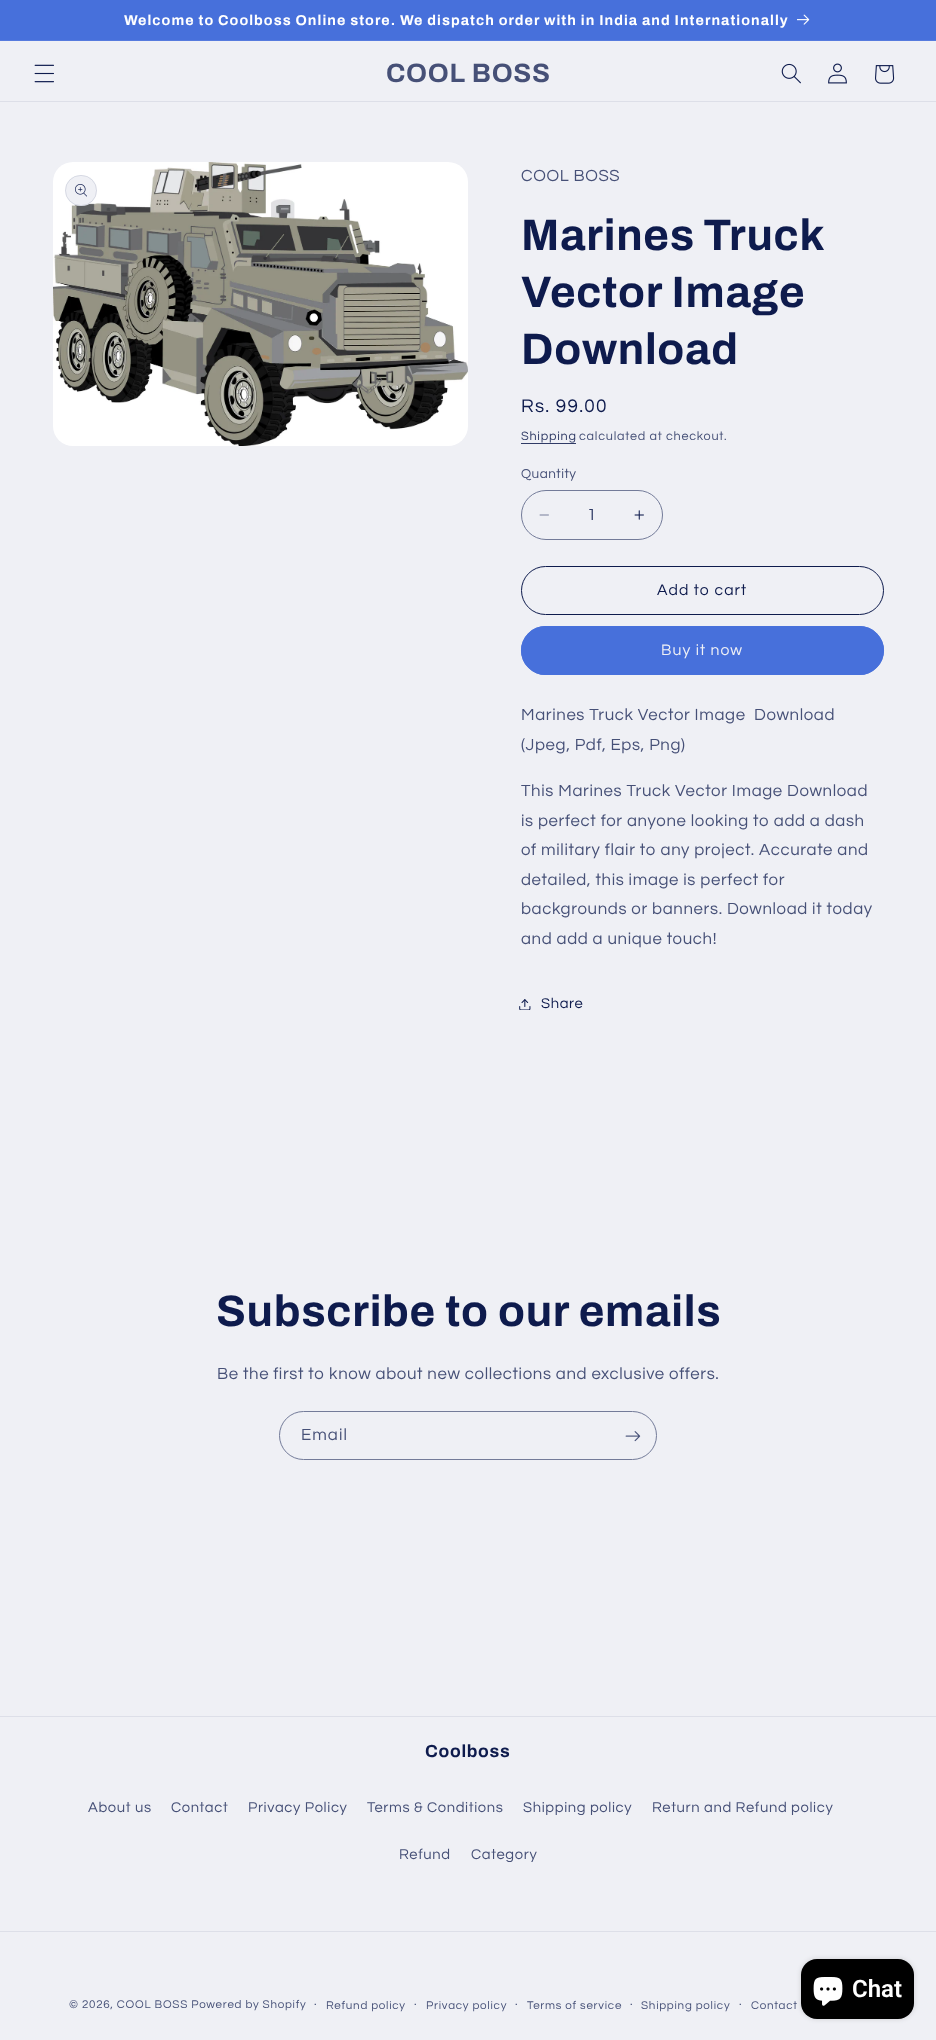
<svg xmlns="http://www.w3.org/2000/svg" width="936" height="2040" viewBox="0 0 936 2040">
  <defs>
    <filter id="blur1" x="-50%" y="-200%" width="200%" height="500%"><feGaussianBlur stdDeviation="2.5"/></filter>
  </defs>
  <rect width="100%" height="100%" fill="#eff0f5"/>
  <rect x="0" y="0" width="936" height="40" fill="#4770db"/>
  <rect x="0" y="40" width="936" height="1" fill="#567bde"/>
  <text x="124" y="25" font-family="Archivo" font-size="14.3" font-weight="bold" letter-spacing="1.05" fill="#ffffff">Welcome to Coolboss Online store. We dispatch order with in India and Internationally</text>
  <image x="797" y="14" width="13" height="11" href="img1.png"/>
  <rect x="0" y="101" width="936" height="1" fill="#dddfe8"/>
  <image x="34" y="64" width="20" height="19" href="img2.png"/>
  <text x="386" y="82" font-family="Archivo" font-size="26.5" font-weight="bold" letter-spacing="0.7" fill="#465077">COOL BOSS</text>
  <image x="781" y="63" width="20" height="21" href="img3.png"/>
  <image x="828" y="63" width="19" height="21" href="img4.png"/>
  <image x="875" y="65" width="20" height="19" href="img5.png"/>
  <image x="53" y="162" width="415" height="284" href="img6.png"/>
  <rect x="65" y="175" width="32" height="31" rx="15.5" fill="#eff0f5"/>
  <rect x="65.5" y="175.5" width="31" height="30" rx="15" fill="none" stroke="#0e1b4d" stroke-opacity="0.1"/>
  <image x="75" y="184" width="12" height="13" href="img7.png"/>
  <text x="521" y="181" font-family="Questrial" font-size="16.8" letter-spacing="0.63" fill="#465077">COOL BOSS</text>
  <text x="521" y="250" word-spacing="-1" font-family="Archivo" font-size="44" font-weight="bold" letter-spacing="0.7" fill="#0e1b4d">Marines Truck</text>
  <text x="521" y="307" font-family="Archivo" font-size="44" font-weight="bold" letter-spacing="0.7" fill="#0e1b4d">Vector Image</text>
  <text x="521" y="364" font-family="Archivo" font-size="44" font-weight="bold" letter-spacing="0.7" fill="#0e1b4d">Download</text>
  <text x="521" y="412" font-family="Questrial" font-size="19" letter-spacing="1.25" fill="#0e1b4d">Rs. 99.00</text>
  <text x="521" y="440" font-family="Questrial" font-size="12.6" letter-spacing="0.75" fill="#303b66">Shipping</text>
  <rect x="521" y="443" width="55" height="1" fill="#303b66"/>
  <text x="579" y="440" font-family="Questrial" font-size="12.6" letter-spacing="0.75" fill="#465077">calculated at checkout.</text>
  <text x="521" y="478" font-family="Questrial" font-size="13.5" letter-spacing="0.5" fill="#465077">Quantity</text>
  <image x="539" y="514" width="10" height="2" href="img8.png"/>
  <image x="634" y="510" width="10" height="10" href="img9.png"/>
  <rect x="521.5" y="490.5" width="141" height="49" rx="24.5" fill="none" stroke="#737b99"/>
  <text x="587" y="520" font-family="Questrial" font-size="16.8" fill="#303b66">1</text>
  <rect x="521.5" y="566.5" width="362" height="48" rx="24" fill="none" stroke="#0e1b4d"/>
  <text x="657" y="595" font-family="Questrial" font-size="15.75" letter-spacing="1.05" fill="#0e1b4d">Add to cart</text>
  <rect x="521" y="626" width="363" height="49" rx="24.5" fill="#4770db"/>
  <rect x="521.5" y="626.5" width="362" height="48" rx="24" fill="none" stroke="#4770db"/>
  <text x="661" y="655" font-family="Questrial" font-size="15.75" letter-spacing="1.05" fill="#eff0f5">Buy it now</text>
  <text x="521" y="720" font-family="Questrial" font-size="16.8" letter-spacing="0.63" fill="#465077" xml:space="preserve">Marines Truck Vector Image  Download</text>
  <text x="521" y="750" font-family="Questrial" font-size="16.8" letter-spacing="0.63" fill="#465077">(Jpeg, Pdf, Eps, Png)</text>
  <text x="521" y="796" font-family="Questrial" font-size="16.8" letter-spacing="0.63" fill="#465077">This Marines Truck Vector Image Download</text>
  <text x="521" y="826" font-family="Questrial" font-size="16.8" letter-spacing="0.63" fill="#465077">is perfect for anyone looking to add a dash</text>
  <text x="521" y="855" font-family="Questrial" font-size="16.8" letter-spacing="0.63" fill="#465077">of military flair to any project. Accurate and</text>
  <text x="521" y="885" font-family="Questrial" font-size="16.8" letter-spacing="0.63" fill="#465077">detailed, this image is perfect for</text>
  <text x="521" y="914" font-family="Questrial" font-size="16.8" letter-spacing="0.63" fill="#465077">backgrounds or banners. Download it today</text>
  <text x="521" y="944" font-family="Questrial" font-size="16.8" letter-spacing="0.63" fill="#465077">and add a unique touch!</text>
  <image x="519" y="999" width="12" height="11" href="img10.png"/>
  <text x="541" y="1008" font-family="Questrial" font-size="14.75" letter-spacing="0.63" fill="#0e1b4d">Share</text>
  <text x="216" y="1326" font-family="Archivo" font-size="44" font-weight="bold" letter-spacing="0.7" fill="#0e1b4d">Subscribe to our emails</text>
  <text x="217" y="1379" font-family="Questrial" font-size="16.8" letter-spacing="0.63" fill="#465077">Be the first to know about new collections and exclusive offers.</text>
  <rect x="279.5" y="1411.5" width="377" height="48" rx="24" fill="none" stroke="#737b99"/>
  <text x="301" y="1440" font-family="Questrial" font-size="16.8" letter-spacing="1.05" fill="#465077">Email</text>
  <image x="625" y="1431" width="16" height="11" href="img11.png"/>
  <rect x="0" y="1716" width="936" height="1" fill="#dddfe8"/>
  <text x="425" y="1757" font-family="Archivo" font-size="17.5" font-weight="bold" letter-spacing="0.7" fill="#0e1b4d">Coolboss</text>
  <text x="88" y="1812" font-family="Questrial" font-size="14.75" letter-spacing="0.63" fill="#465077">About us</text>
  <text x="171" y="1812" font-family="Questrial" font-size="14.75" letter-spacing="0.63" fill="#465077">Contact</text>
  <text x="248" y="1812" font-family="Questrial" font-size="14.75" letter-spacing="0.63" fill="#465077">Privacy Policy</text>
  <text x="367" y="1812" font-family="Questrial" font-size="14.75" letter-spacing="0.63" fill="#465077">Terms &amp; Conditions</text>
  <text x="523" y="1812" font-family="Questrial" font-size="14.75" letter-spacing="0.63" fill="#465077">Shipping policy</text>
  <text x="652" y="1812" font-family="Questrial" font-size="14.75" letter-spacing="0.63" fill="#465077">Return and Refund policy</text>
  <text x="399" y="1859" font-family="Questrial" font-size="14.75" letter-spacing="0.63" fill="#465077">Refund</text>
  <text x="471" y="1859" font-family="Questrial" font-size="14.75" letter-spacing="0.63" fill="#465077">Category</text>
  <rect x="0" y="1931" width="936" height="1" fill="#dddfe8"/>
  <text x="69" y="2008" font-family="Questrial" font-size="11.55" letter-spacing="0.75" fill="#465077">© 2026, COOL BOSS Powered by Shopify</text>
  <text x="314" y="2008" font-family="Questrial" font-size="12.6" letter-spacing="0.75" fill="#465077">·</text>
  <text x="326" y="2009" font-family="Questrial" font-size="11.55" letter-spacing="0.75" fill="#465077">Refund policy</text>
  <text x="414" y="2008" font-family="Questrial" font-size="12.6" letter-spacing="0.75" fill="#465077">·</text>
  <text x="426" y="2009" font-family="Questrial" font-size="11.55" letter-spacing="0.75" fill="#465077">Privacy policy</text>
  <text x="515" y="2008" font-family="Questrial" font-size="12.6" letter-spacing="0.75" fill="#465077">·</text>
  <text x="527" y="2009" font-family="Questrial" font-size="11.55" letter-spacing="0.75" fill="#465077">Terms of service</text>
  <text x="630" y="2008" font-family="Questrial" font-size="12.6" letter-spacing="0.75" fill="#465077">·</text>
  <text x="641" y="2009" font-family="Questrial" font-size="11.55" letter-spacing="0.75" fill="#465077">Shipping policy</text>
  <text x="739" y="2008" font-family="Questrial" font-size="12.6" letter-spacing="0.75" fill="#465077">·</text>
  <text x="751" y="2009" font-family="Questrial" font-size="11.55" letter-spacing="0.75" fill="#465077">Contact</text>
  <rect x="801" y="1959" width="113" height="60" rx="16" fill="#000000" fill-opacity="0.15" filter="url(#blur1)"/>
  <rect x="801" y="1959" width="113" height="60" rx="16" fill="#000000"/>
  <image x="813" y="1977" width="30" height="29" href="img12.png"/>
  <text x="852" y="1997" font-family="Roboto" font-size="24" font-weight="600" fill="#ffffff">Chat</text>
</svg>
